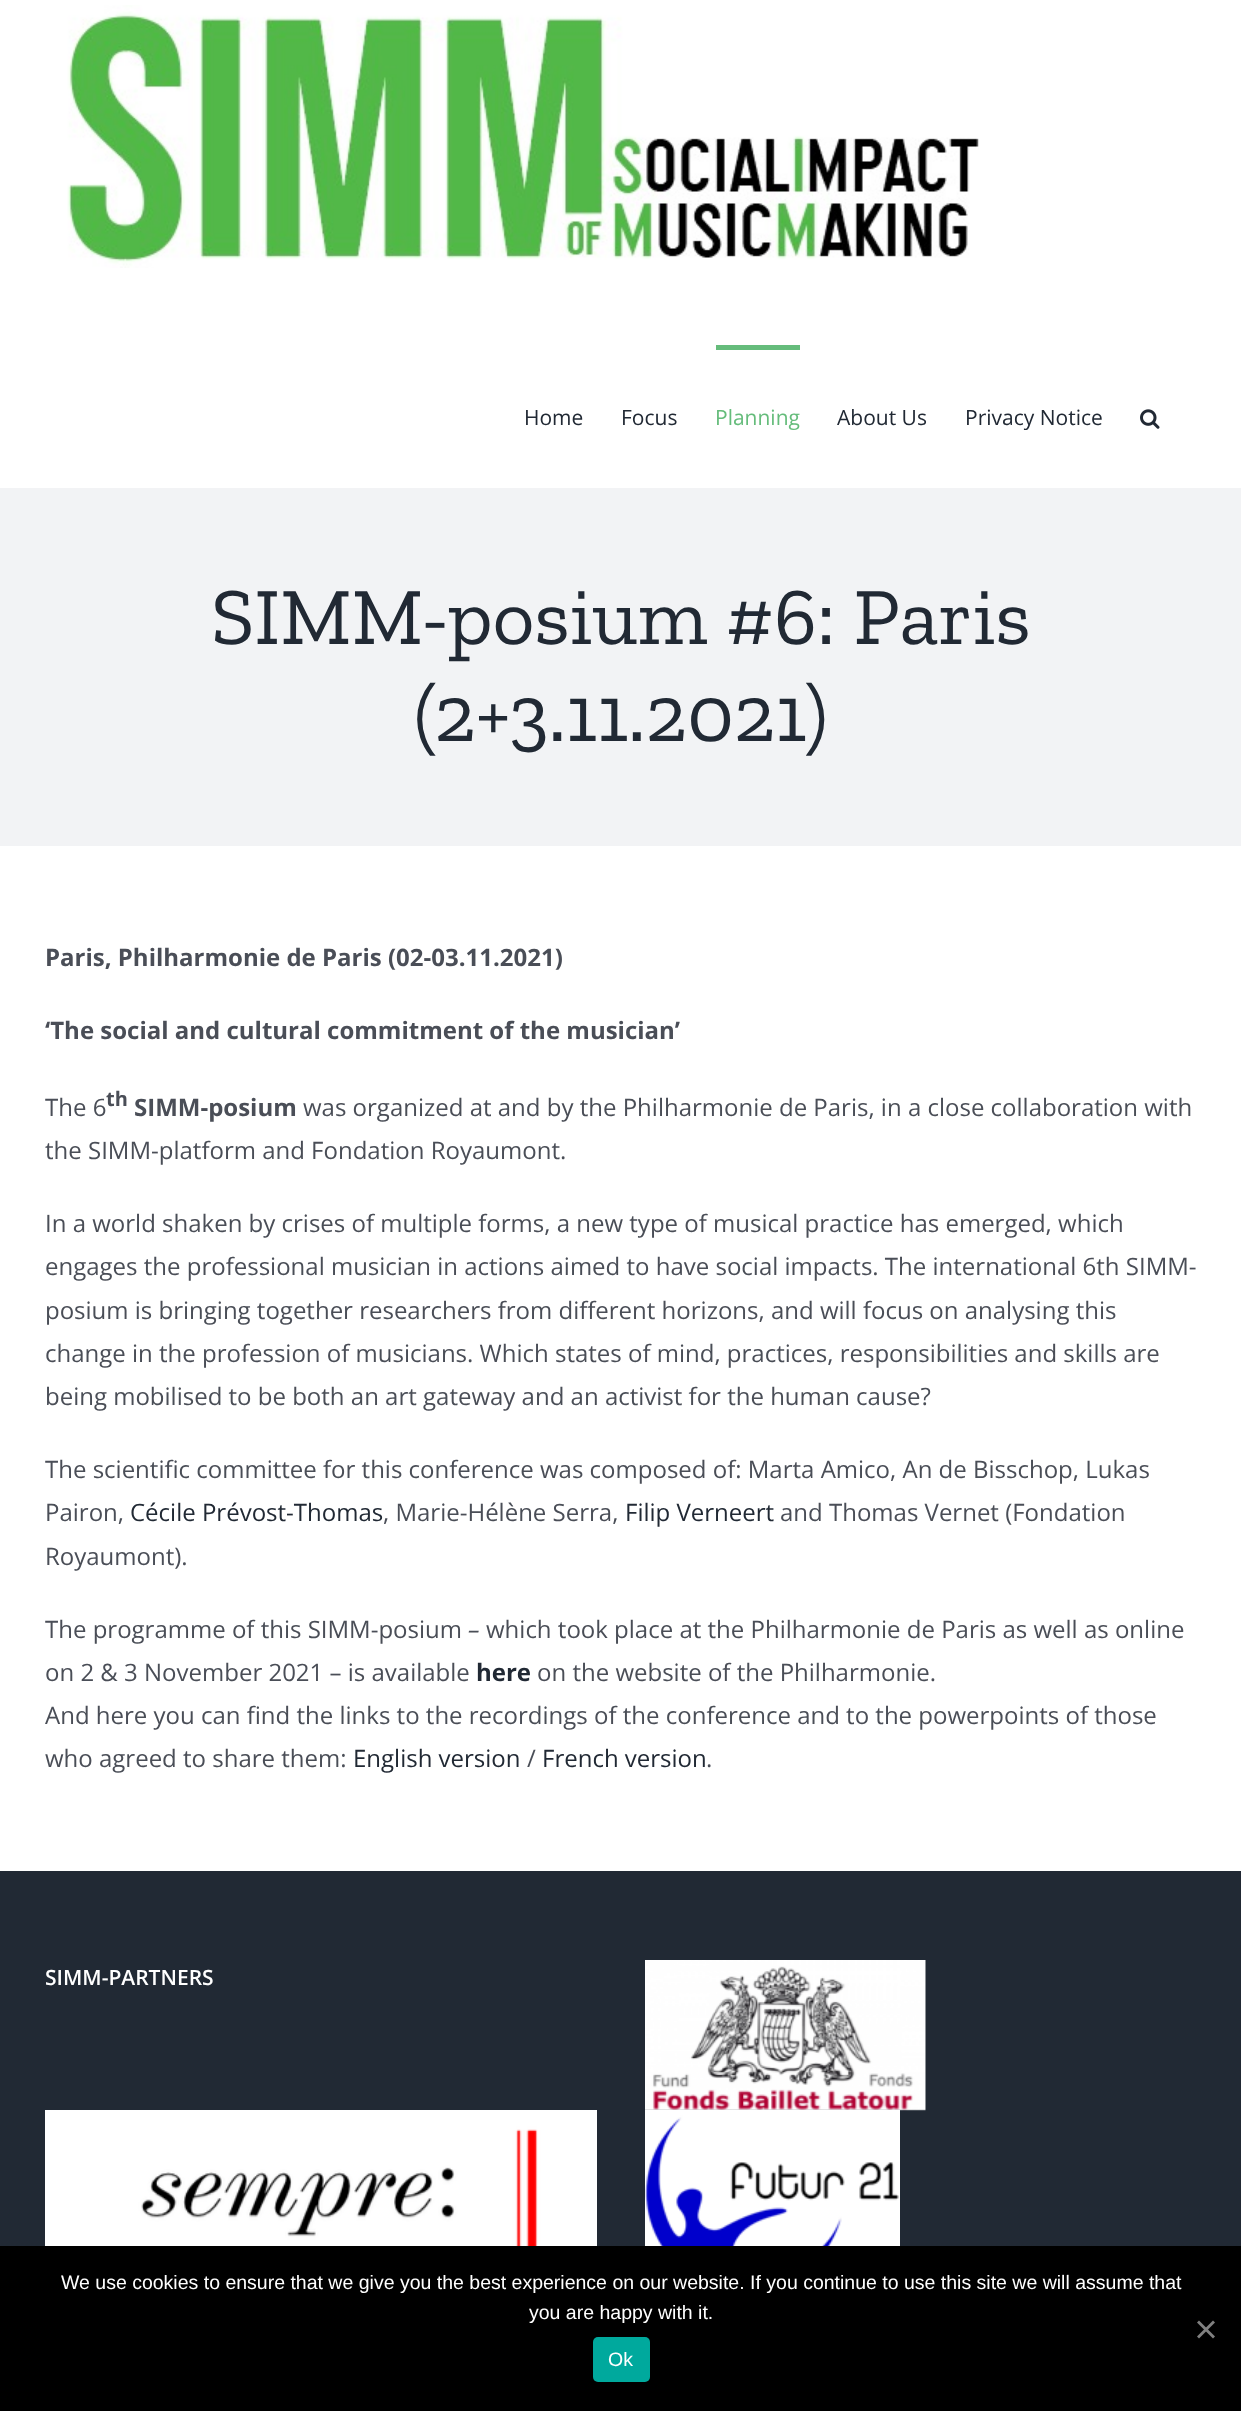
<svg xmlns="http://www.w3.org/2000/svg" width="1241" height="2411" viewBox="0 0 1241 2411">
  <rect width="100%" height="100%" fill="#ffffff"/>
  <image x="67" y="5" width="912" height="263" href="img1.png"/>
  <text x="524" y="425" font-family="Open Sans" font-size="21" fill="#212934">Home</text>
  <text x="621" y="425" font-family="Open Sans" font-size="21" fill="#212934">Focus</text>
  <rect x="716" y="345" width="84" height="5" fill="#65bc7b"/>
  <text x="715" y="425" font-family="Open Sans" font-size="21" fill="#65bc7b">Planning</text>
  <text x="837" y="425" font-family="Open Sans" font-size="21" fill="#212934">About Us</text>
  <text x="965" y="425" font-family="Open Sans" font-size="21" fill="#212934">Privacy Notice</text>
  <image x="1140" y="409" width="20" height="20" href="img2.png"/>
  <rect x="0" y="488" width="1241" height="358" fill="#f2f3f5"/>
  <text x="211" y="644" font-family="Zilla Slab" font-size="81" fill="#212934">SIMM-posium #6: Paris</text>
  <text x="414" y="741" font-family="Zilla Slab" font-size="81" fill="#212934">(2+3.11.2021)</text>
  <text x="45" y="966" font-family="Open Sans" font-size="24" font-weight="bold" fill="#4a4e57">Paris, Philharmonie de Paris (02-03.11.2021)</text>
  <text x="45" y="1039" font-family="Open Sans" font-size="24" font-weight="bold" fill="#4a4e57">‘The social and cultural commitment of the musician’</text>
  <text x="45" y="1116" font-family="Open Sans" font-size="24" fill="#4a4e57">The 6</text>
  <text x="106" y="1106" font-family="Open Sans" font-size="20" font-weight="bold" fill="#4a4e57">th</text>
  <text x="134" y="1116" font-family="Open Sans" font-size="24" font-weight="bold" fill="#4a4e57">SIMM-posium</text>
  <text x="303" y="1116" font-family="Open Sans" font-size="24" fill="#4a4e57">was organized at and by the Philharmonie de Paris, in a close collaboration with</text>
  <text x="45" y="1159" font-family="Open Sans" font-size="24" fill="#4a4e57">the SIMM-platform and Fondation Royaumont.</text>
  <text x="45" y="1232" font-family="Open Sans" font-size="24" fill="#4a4e57">In a world shaken by crises of multiple forms, a new type of musical practice has emerged, which</text>
  <text x="45" y="1275" font-family="Open Sans" font-size="24" fill="#4a4e57">engages the professional musician in actions aimed to have social impacts. The international 6th SIMM-</text>
  <text x="45" y="1319" font-family="Open Sans" font-size="24" fill="#4a4e57">posium is bringing together researchers from different horizons, and will focus on analysing this</text>
  <text x="45" y="1362" font-family="Open Sans" font-size="24" fill="#4a4e57">change in the profession of musicians. Which states of mind, practices, responsibilities and skills are</text>
  <text x="45" y="1405" font-family="Open Sans" font-size="24" fill="#4a4e57">being mobilised to be both an art gateway and an activist for the human cause?</text>
  <text x="45" y="1478" font-family="Open Sans" font-size="24" fill="#4a4e57">The scientific committee for this conference was composed of: Marta Amico, An de Bisschop, Lukas</text>
  <text x="45" y="1521" font-family="Open Sans" font-size="24" fill="#4a4e57">Pairon,</text>
  <text x="130" y="1521" font-family="Open Sans" font-size="24" fill="#212934">Cécile Prévost-Thomas</text>
  <text x="383" y="1521" font-family="Open Sans" font-size="24" fill="#4a4e57">, Marie-Hélène Serra,</text>
  <text x="625" y="1521" font-family="Open Sans" font-size="24" fill="#212934">Filip Verneert</text>
  <text x="780" y="1521" font-family="Open Sans" font-size="24" fill="#4a4e57">and Thomas Vernet (Fondation</text>
  <text x="45" y="1565" font-family="Open Sans" font-size="24" fill="#4a4e57">Royaumont).</text>
  <text x="45" y="1638" font-family="Open Sans" font-size="24" fill="#4a4e57">The programme of this SIMM-posium</text>
  <text x="468" y="1638" font-family="Open Sans" font-size="24" font-style="italic" fill="#4a4e57">–</text>
  <text x="486" y="1638" font-family="Open Sans" font-size="24" fill="#4a4e57">which took place at the Philharmonie de Paris as well as online</text>
  <text x="45" y="1681" font-family="Open Sans" font-size="24" fill="#4a4e57">on 2 &amp; 3 November 2021 – is available</text>
  <text x="476" y="1681" font-family="Open Sans" font-size="24" font-weight="bold" fill="#212934">here</text>
  <text x="537" y="1681" font-family="Open Sans" font-size="24" fill="#4a4e57">on the website of the Philharmonie.</text>
  <text x="45" y="1724" font-family="Open Sans" font-size="24" fill="#4a4e57">And here you can find the links to the recordings of the conference and to the powerpoints of those</text>
  <text x="45" y="1767" font-family="Open Sans" font-size="24" fill="#4a4e57">who agreed to share them:</text>
  <text x="353" y="1767" font-family="Open Sans" font-size="24" fill="#212934">English version</text>
  <text x="527" y="1767" font-family="Open Sans" font-size="24" fill="#4a4e57">/</text>
  <text x="542" y="1767" font-family="Open Sans" font-size="24" fill="#212934">French version</text>
  <text x="706" y="1767" font-family="Open Sans" font-size="24" fill="#4a4e57">.</text>
  <rect x="0" y="1871" width="1241" height="375" fill="#212934"/>
  <text x="45" y="1985" font-family="Open Sans" font-size="21" font-weight="600" fill="#ffffff">SIMM-PARTNERS</text>
  <image x="645" y="1960" width="281" height="151" href="img3.png"/>
  <image x="45" y="2110" width="552" height="136" href="img4.png"/>
  <image x="645" y="2110" width="255" height="136" href="img5.png"/>
  <rect x="0" y="2246" width="1241" height="165" fill="#000000"/>
  <text x="61" y="2289" font-family="Liberation Sans" font-size="19.5" fill="#ffffff">We use cookies to ensure that we give you the best experience on our website. If you continue to use this site we will assume that</text>
  <text x="529" y="2319" font-family="Liberation Sans" font-size="19.5" fill="#ffffff">you are happy with it.</text>
  <path d="M1213 2320.5L1215 2322.5L1199 2338.5L1197 2336.5Z" fill="#808080"/>
  <path d="M1197 2322.5L1199 2320.5L1215 2336.5L1213 2338.5Z" fill="#808080"/>
  <rect x="593" y="2337" width="57" height="45" rx="5" fill="#00a99d"/>
  <text x="608" y="2366" font-family="Liberation Sans" font-size="19.5" fill="#ffffff">Ok</text>
</svg>
